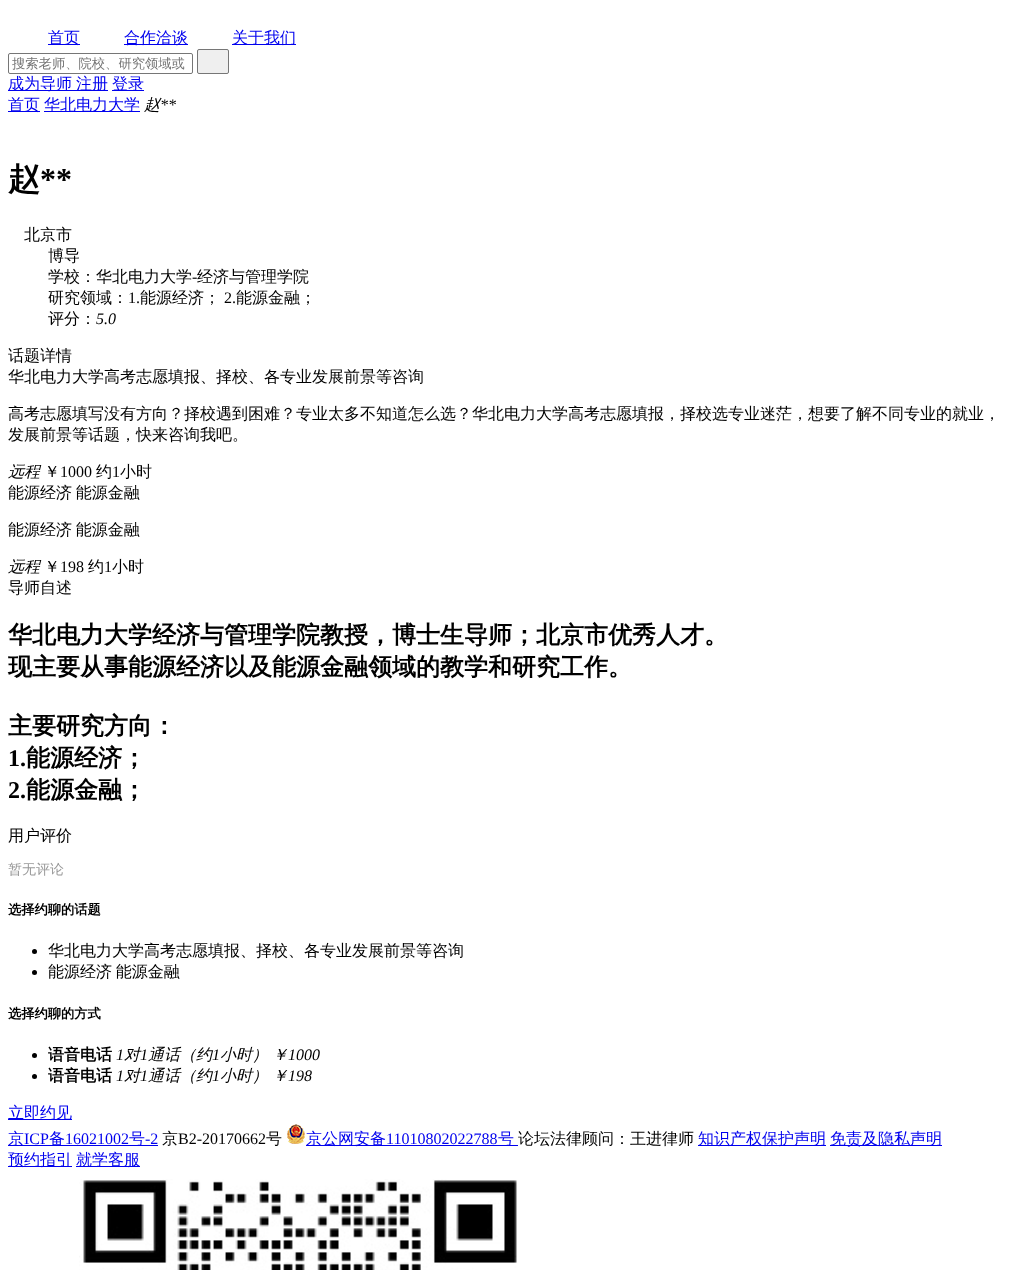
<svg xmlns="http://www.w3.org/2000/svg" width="1013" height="1270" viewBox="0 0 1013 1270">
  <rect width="100%" height="100%" fill="#ffffff"/>
  <rect x="48" y="44" width="32" height="1" fill="#0000ee"/>
  <text x="48" y="43" font-family="WenQuanYi Zen Hei" font-size="16" font-weight="500" fill="#0000ee">首页</text>
  <rect x="124" y="44" width="64" height="1" fill="#0000ee"/>
  <text x="124" y="43" font-family="WenQuanYi Zen Hei" font-size="16" font-weight="500" fill="#0000ee">合作洽谈</text>
  <rect x="232" y="44" width="64" height="1" fill="#0000ee"/>
  <text x="232" y="43" font-family="WenQuanYi Zen Hei" font-size="16" font-weight="500" fill="#0000ee">关于我们</text>
  <rect x="8.5" y="53.5" width="184" height="20" rx="1.5" fill="none" stroke="#767676"/>
  <text x="12" y="68" font-family="WenQuanYi Zen Hei" font-size="13.3" font-weight="500" fill="#757575">搜索老师、院校、研究领域或</text>
  <rect x="197.5" y="49.5" width="31" height="24" rx="1.5" fill="#efefef" stroke="#767676"/>
  <rect x="8" y="90" width="100" height="1" fill="#0000ee"/>
  <text x="8" y="89" font-family="WenQuanYi Zen Hei" font-size="16" font-weight="500" fill="#0000ee">成为导师</text>
  <text x="76" y="89" font-family="WenQuanYi Zen Hei" font-size="16" font-weight="500" fill="#0000ee">注册</text>
  <rect x="112" y="90" width="32" height="1" fill="#0000ee"/>
  <text x="112" y="89" font-family="WenQuanYi Zen Hei" font-size="16" font-weight="500" fill="#0000ee">登录</text>
  <rect x="8" y="111" width="32" height="1" fill="#0000ee"/>
  <text x="8" y="110" font-family="WenQuanYi Zen Hei" font-size="16" font-weight="500" fill="#0000ee">首页</text>
  <rect x="44" y="111" width="96" height="1" fill="#0000ee"/>
  <text x="44" y="110" font-family="WenQuanYi Zen Hei" font-size="16" font-weight="500" fill="#0000ee">华北电力大学</text>
  <text x="144" y="110" font-family="WenQuanYi Zen Hei" font-size="16" font-weight="500" font-style="italic" fill="#000000">赵</text>
  <text x="160" y="110" font-family="Liberation Serif" font-size="16" font-style="italic" fill="#000000">**</text>
  <text x="8" y="190" font-family="WenQuanYi Zen Hei" font-size="32" font-weight="bold" fill="#000000">赵</text>
  <text x="40" y="190" font-family="Liberation Serif" font-size="32" font-weight="bold" fill="#000000">**</text>
  <text x="24" y="240" font-family="WenQuanYi Zen Hei" font-size="16" font-weight="500" fill="#000000">北京市</text>
  <text x="48" y="261" font-family="WenQuanYi Zen Hei" font-size="16" font-weight="500" fill="#000000">博导</text>
  <text x="48" y="282" font-family="WenQuanYi Zen Hei" font-size="16" font-weight="500" fill="#000000">学校：华北电力大学</text>
  <text x="192" y="282" font-family="Liberation Serif" font-size="16" fill="#000000">-</text>
  <text x="197" y="282" font-family="WenQuanYi Zen Hei" font-size="16" font-weight="500" fill="#000000">经济与管理学院</text>
  <text x="48" y="303" font-family="WenQuanYi Zen Hei" font-size="16" font-weight="500" fill="#000000">研究领域：</text>
  <text x="128" y="303" font-family="Liberation Serif" font-size="16" fill="#000000">1.</text>
  <text x="140" y="303" font-family="WenQuanYi Zen Hei" font-size="16" font-weight="500" fill="#000000">能源经济；</text>
  <text x="224" y="303" font-family="Liberation Serif" font-size="16" fill="#000000">2.</text>
  <text x="236" y="303" font-family="WenQuanYi Zen Hei" font-size="16" font-weight="500" fill="#000000">能源金融；</text>
  <text x="48" y="324" font-family="WenQuanYi Zen Hei" font-size="16" font-weight="500" fill="#000000">评分：</text>
  <text x="96" y="324" font-family="Liberation Serif" font-size="16" font-style="italic" fill="#000000">5.0</text>
  <text x="8" y="361" font-family="WenQuanYi Zen Hei" font-size="16" font-weight="500" fill="#000000">话题详情</text>
  <text x="8" y="382" font-family="WenQuanYi Zen Hei" font-size="16" font-weight="500" fill="#000000">华北电力大学高考志愿填报、择校、各专业发展前景等咨询</text>
  <text x="8" y="419" font-family="WenQuanYi Zen Hei" font-size="16" font-weight="500" fill="#000000">高考志愿填写没有方向？择校遇到困难？专业太多不知道怎么选？华北电力大学高考志愿填报，择校选专业迷茫，想要了解不同专业的就业，</text>
  <text x="8" y="440" font-family="WenQuanYi Zen Hei" font-size="16" font-weight="500" fill="#000000">发展前景等话题，快来咨询我吧。</text>
  <text x="8" y="477" font-family="WenQuanYi Zen Hei" font-size="16" font-weight="500" font-style="italic" fill="#000000">远程</text>
  <text x="44" y="477" font-family="WenQuanYi Zen Hei" font-size="16" font-weight="500" fill="#000000">￥</text>
  <text x="60" y="477" font-family="Liberation Serif" font-size="16" fill="#000000">1000</text>
  <text x="96" y="477" font-family="WenQuanYi Zen Hei" font-size="16" font-weight="500" fill="#000000">约</text>
  <text x="112" y="477" font-family="Liberation Serif" font-size="16" fill="#000000">1</text>
  <text x="120" y="477" font-family="WenQuanYi Zen Hei" font-size="16" font-weight="500" fill="#000000">小时</text>
  <text x="8" y="498" word-spacing="-1" font-family="WenQuanYi Zen Hei" font-size="16" font-weight="500" fill="#000000">能源经济 能源金融</text>
  <text x="8" y="535" word-spacing="-1" font-family="WenQuanYi Zen Hei" font-size="16" font-weight="500" fill="#000000">能源经济 能源金融</text>
  <text x="8" y="572" font-family="WenQuanYi Zen Hei" font-size="16" font-weight="500" font-style="italic" fill="#000000">远程</text>
  <text x="44" y="572" font-family="WenQuanYi Zen Hei" font-size="16" font-weight="500" fill="#000000">￥</text>
  <text x="60" y="572" font-family="Liberation Serif" font-size="16" fill="#000000">198</text>
  <text x="88" y="572" font-family="WenQuanYi Zen Hei" font-size="16" font-weight="500" fill="#000000">约</text>
  <text x="104" y="572" font-family="Liberation Serif" font-size="16" fill="#000000">1</text>
  <text x="112" y="572" font-family="WenQuanYi Zen Hei" font-size="16" font-weight="500" fill="#000000">小时</text>
  <text x="8" y="593" font-family="WenQuanYi Zen Hei" font-size="16" font-weight="500" fill="#000000">导师自述</text>
  <text x="8" y="643" font-family="WenQuanYi Zen Hei" font-size="24" font-weight="bold" fill="#000000">华北电力大学经济与管理学院教授，博士生导师；北京市优秀人才。</text>
  <text x="8" y="675" font-family="WenQuanYi Zen Hei" font-size="24" font-weight="bold" fill="#000000">现主要从事能源经济以及能源金融领域的教学和研究工作。</text>
  <text x="8" y="734" font-family="WenQuanYi Zen Hei" font-size="24" font-weight="bold" fill="#000000">主要研究方向：</text>
  <text x="8" y="766" font-family="Liberation Serif" font-size="24" font-weight="bold" fill="#000000">1.</text>
  <text x="26" y="766" font-family="WenQuanYi Zen Hei" font-size="24" font-weight="bold" fill="#000000">能源经济；</text>
  <text x="8" y="798" font-family="Liberation Serif" font-size="24" font-weight="bold" fill="#000000">2.</text>
  <text x="26" y="798" font-family="WenQuanYi Zen Hei" font-size="24" font-weight="bold" fill="#000000">能源金融；</text>
  <text x="8" y="841" font-family="WenQuanYi Zen Hei" font-size="16" font-weight="500" fill="#000000">用户评价</text>
  <text x="8" y="874" font-family="WenQuanYi Zen Hei" font-size="14" font-weight="500" fill="#999999">暂无评论</text>
  <text x="8" y="914" font-family="WenQuanYi Zen Hei" font-size="13.25" font-weight="bold" fill="#000000">选择约聊的话题</text>
  <circle cx="34.5" cy="951.5" r="2.5" fill="#000000"/>
  <text x="48" y="956" font-family="WenQuanYi Zen Hei" font-size="16" font-weight="500" fill="#000000">华北电力大学高考志愿填报、择校、各专业发展前景等咨询</text>
  <circle cx="34.5" cy="972.5" r="2.5" fill="#000000"/>
  <text x="48" y="977" word-spacing="-1" font-family="WenQuanYi Zen Hei" font-size="16" font-weight="500" fill="#000000">能源经济 能源金融</text>
  <text x="8" y="1018" font-family="WenQuanYi Zen Hei" font-size="13.25" font-weight="bold" fill="#000000">选择约聊的方式</text>
  <circle cx="34.5" cy="1055.5" r="2.5" fill="#000000"/>
  <text x="48" y="1060" font-family="WenQuanYi Zen Hei" font-size="16" font-weight="bold" fill="#000000">语音电话</text>
  <text x="116" y="1060" font-family="Liberation Serif" font-size="16" font-style="italic" fill="#000000">1</text>
  <text x="124" y="1060" font-family="WenQuanYi Zen Hei" font-size="16" font-weight="500" font-style="italic" fill="#000000">对</text>
  <text x="140" y="1060" font-family="Liberation Serif" font-size="16" font-style="italic" fill="#000000">1</text>
  <text x="148" y="1060" font-family="WenQuanYi Zen Hei" font-size="16" font-weight="500" font-style="italic" fill="#000000">通话（约</text>
  <text x="212" y="1060" font-family="Liberation Serif" font-size="16" font-style="italic" fill="#000000">1</text>
  <text x="220" y="1060" font-family="WenQuanYi Zen Hei" font-size="16" font-weight="500" font-style="italic" fill="#000000">小时）</text>
  <text x="272" y="1060" font-family="WenQuanYi Zen Hei" font-size="16" font-weight="500" font-style="italic" fill="#000000">￥</text>
  <text x="288" y="1060" font-family="Liberation Serif" font-size="16" font-style="italic" fill="#000000">1000</text>
  <circle cx="34.5" cy="1076.5" r="2.5" fill="#000000"/>
  <text x="48" y="1081" font-family="WenQuanYi Zen Hei" font-size="16" font-weight="bold" fill="#000000">语音电话</text>
  <text x="116" y="1081" font-family="Liberation Serif" font-size="16" font-style="italic" fill="#000000">1</text>
  <text x="124" y="1081" font-family="WenQuanYi Zen Hei" font-size="16" font-weight="500" font-style="italic" fill="#000000">对</text>
  <text x="140" y="1081" font-family="Liberation Serif" font-size="16" font-style="italic" fill="#000000">1</text>
  <text x="148" y="1081" font-family="WenQuanYi Zen Hei" font-size="16" font-weight="500" font-style="italic" fill="#000000">通话（约</text>
  <text x="212" y="1081" font-family="Liberation Serif" font-size="16" font-style="italic" fill="#000000">1</text>
  <text x="220" y="1081" font-family="WenQuanYi Zen Hei" font-size="16" font-weight="500" font-style="italic" fill="#000000">小时）</text>
  <text x="272" y="1081" font-family="WenQuanYi Zen Hei" font-size="16" font-weight="500" font-style="italic" fill="#000000">￥</text>
  <text x="288" y="1081" font-family="Liberation Serif" font-size="16" font-style="italic" fill="#000000">198</text>
  <rect x="8" y="1119" width="64" height="1" fill="#0000ee"/>
  <text x="8" y="1118" font-family="WenQuanYi Zen Hei" font-size="16" font-weight="500" fill="#0000ee">立即约见</text>
  <rect x="8" y="1145" width="150" height="1" fill="#0000ee"/>
  <text x="8" y="1144" font-family="WenQuanYi Zen Hei" font-size="16" font-weight="500" fill="#0000ee">京</text>
  <text x="24" y="1144" font-family="Liberation Serif" font-size="16" fill="#0000ee">ICP</text>
  <text x="49" y="1144" font-family="WenQuanYi Zen Hei" font-size="16" font-weight="500" fill="#0000ee">备</text>
  <text x="65" y="1144" font-family="Liberation Serif" font-size="16" fill="#0000ee">16021002</text>
  <text x="129" y="1144" font-family="WenQuanYi Zen Hei" font-size="16" font-weight="500" fill="#0000ee">号</text>
  <text x="145" y="1144" font-family="Liberation Serif" font-size="16" fill="#0000ee">-2</text>
  <text x="162" y="1144" font-family="WenQuanYi Zen Hei" font-size="16" font-weight="500" fill="#000000">京</text>
  <text x="178" y="1144" font-family="Liberation Serif" font-size="16" fill="#000000">B2-20170662</text>
  <text x="266" y="1144" font-family="WenQuanYi Zen Hei" font-size="16" font-weight="500" fill="#000000">号</text>
  <image x="287" y="1124" width="18" height="20" href="img1.png"/>
  <rect x="306" y="1145" width="212" height="1" fill="#0000ee"/>
  <text x="306" y="1144" font-family="WenQuanYi Zen Hei" font-size="16" font-weight="500" fill="#0000ee">京公网安备</text>
  <text x="386" y="1144" font-family="Liberation Serif" font-size="16" fill="#0000ee">11010802022788</text>
  <text x="498" y="1144" font-family="WenQuanYi Zen Hei" font-size="16" font-weight="500" fill="#0000ee">号</text>
  <text x="518" y="1144" font-family="WenQuanYi Zen Hei" font-size="16" font-weight="500" fill="#000000">论坛法律顾问：王进律师</text>
  <rect x="698" y="1145" width="128" height="1" fill="#0000ee"/>
  <text x="698" y="1144" font-family="WenQuanYi Zen Hei" font-size="16" font-weight="500" fill="#0000ee">知识产权保护声明</text>
  <rect x="830" y="1145" width="112" height="1" fill="#0000ee"/>
  <text x="830" y="1144" font-family="WenQuanYi Zen Hei" font-size="16" font-weight="500" fill="#0000ee">免责及隐私声明</text>
  <rect x="8" y="1166" width="64" height="1" fill="#0000ee"/>
  <text x="8" y="1165" font-family="WenQuanYi Zen Hei" font-size="16" font-weight="500" fill="#0000ee">预约指引</text>
  <rect x="76" y="1166" width="64" height="1" fill="#0000ee"/>
  <text x="76" y="1165" font-family="WenQuanYi Zen Hei" font-size="16" font-weight="500" fill="#0000ee">就学客服</text>
  <image x="79" y="1179" width="438" height="91" href="img2.png"/>
</svg>
